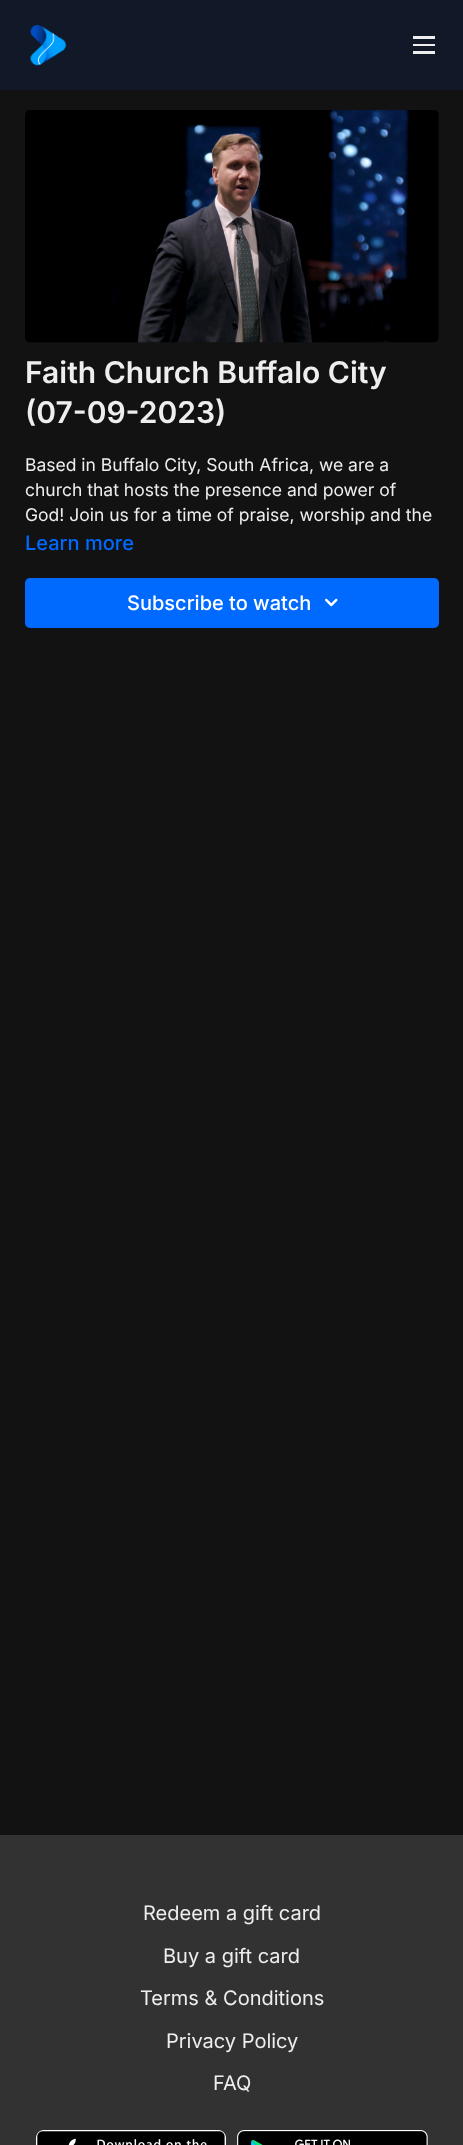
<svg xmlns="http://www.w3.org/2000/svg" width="463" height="2145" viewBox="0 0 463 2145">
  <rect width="100%" height="100%" fill="#121212"/>
  <rect x="0" y="0" width="463" height="90" fill="#111827"/>
  <image x="30" y="24" width="37" height="42" href="img1.png"/>
  <rect x="413" y="36" width="22" height="3" fill="#eeeeee"/>
  <rect x="413" y="44" width="22" height="2" fill="#eeeeee"/>
  <rect x="413" y="51" width="22" height="3" fill="#eeeeee"/>
  <image x="25" y="110" width="414" height="233" href="img2.png"/>
  <text x="25" y="383" font-family="Inter" font-size="30" font-weight="600" fill="#eeeeee">Faith Church Buffalo City</text>
  <text x="25" y="423" font-family="Inter" font-size="30" font-weight="600" fill="#eeeeee">(07-09-2023)</text>
  <text x="25" y="471" font-family="Inter" font-size="17.5" fill="#eeeeee">Based in Buffalo City, South Africa, we are a</text>
  <text x="25" y="496" font-family="Inter" font-size="17.5" fill="#eeeeee">church that hosts the presence and power of</text>
  <text x="25" y="521" font-family="Inter" font-size="17.5" fill="#eeeeee">God! Join us for a time of praise, worship and the</text>
  <text x="25" y="550" font-family="Inter" font-size="20" font-weight="500" fill="#006aff">Learn more</text>
  <rect x="25" y="578" width="414" height="50" rx="5" fill="#006aff"/>
  <text x="127" y="610" font-family="Inter" font-size="20" font-weight="500" fill="#ffffff">Subscribe to watch</text>
  <image x="325" y="598" width="13" height="9" href="img3.png"/>
  <rect x="0" y="1835" width="463" height="310" fill="#323232"/>
  <text x="143" y="1920" font-family="Inter" font-size="20" fill="#eeeeee">Redeem a gift card</text>
  <text x="163" y="1963" font-family="Inter" font-size="20" fill="#eeeeee">Buy a gift card</text>
  <text x="140" y="2005" font-family="Inter" font-size="20" fill="#eeeeee">Terms &amp; Conditions</text>
  <text x="166" y="2048" font-family="Inter" font-size="20" fill="#eeeeee">Privacy Policy</text>
  <text x="213" y="2090" font-family="Inter" font-size="20" fill="#eeeeee">FAQ</text>
  <image x="36" y="2130" width="190" height="15" href="img4.png"/>
  <image x="237" y="2130" width="191" height="15" href="img5.png"/>
</svg>
